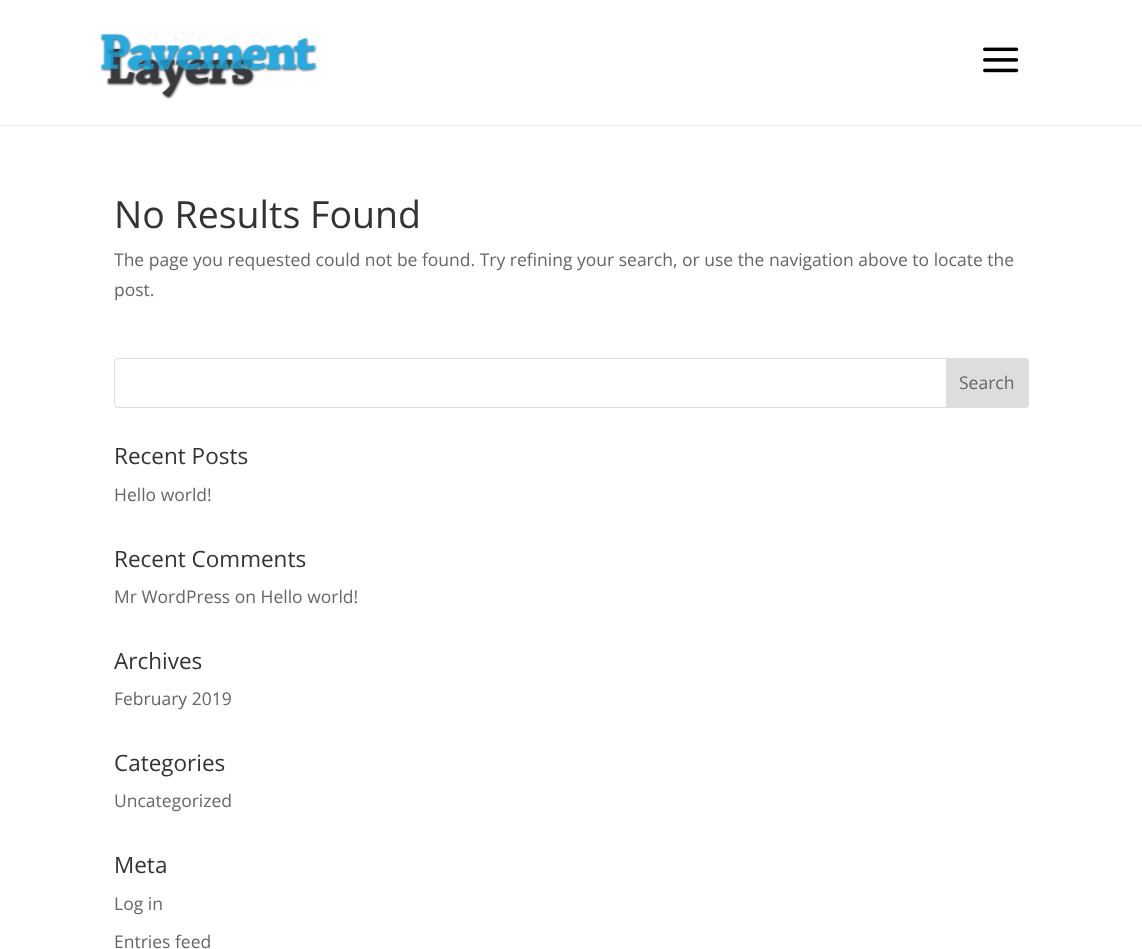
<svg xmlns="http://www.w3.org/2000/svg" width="1142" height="949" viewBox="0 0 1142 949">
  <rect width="100%" height="100%" fill="#ffffff"/>
  <path d="M0 125V126H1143V1H1142V125Z" fill="#e6e6e6"/>
  <image x="100" y="33" width="218" height="67" href="img1.png"/>
  <image x="983" y="47" width="36" height="26" href="img2.png"/>
  <text x="114" y="228" font-family="Open Sans" font-size="37.5" fill="#333333">No Results Found</text>
  <text x="114" y="266" font-family="Open Sans" font-size="17.5" fill="#666666">The page you requested could not be found. Try refining your search, or use the navigation above to locate the</text>
  <text x="114" y="296" font-family="Open Sans" font-size="17.5" fill="#666666">post.</text>
  <rect x="114.5" y="358.5" width="914" height="49" rx="3.5" fill="none" stroke="#dddddd"/>
  <path d="M946.5 358.5H1025C1027 358.5 1028.5 360 1028.5 362V404C1028.5 406 1027 407.5 1025 407.5H946.5Z" fill="#dddddd" stroke="#dddddd"/>
  <text x="959" y="389" font-family="Open Sans" font-size="17.5" fill="#666666">Search</text>
  <text x="114" y="464" font-family="Open Sans" font-size="22.5" fill="#333333">Recent Posts</text>
  <text x="114" y="501" font-family="Open Sans" font-size="17.5" fill="#666666">Hello world!</text>
  <text x="114" y="567" font-family="Open Sans" font-size="22.5" fill="#333333">Recent Comments</text>
  <text x="114" y="603" font-family="Open Sans" font-size="17.5" fill="#666666">Mr WordPress on Hello world!</text>
  <text x="114" y="669" font-family="Open Sans" font-size="22.5" fill="#333333">Archives</text>
  <text x="114" y="705" font-family="Open Sans" font-size="17.5" fill="#666666">February 2019</text>
  <text x="114" y="771" font-family="Open Sans" font-size="22.5" fill="#333333">Categories</text>
  <text x="114" y="807" font-family="Open Sans" font-size="17.5" fill="#666666">Uncategorized</text>
  <text x="114" y="873" font-family="Open Sans" font-size="22.5" fill="#333333">Meta</text>
  <text x="114" y="910" font-family="Open Sans" font-size="17.5" fill="#666666">Log in</text>
  <text x="114" y="948" font-family="Open Sans" font-size="17.5" fill="#666666">Entries feed</text>
</svg>
